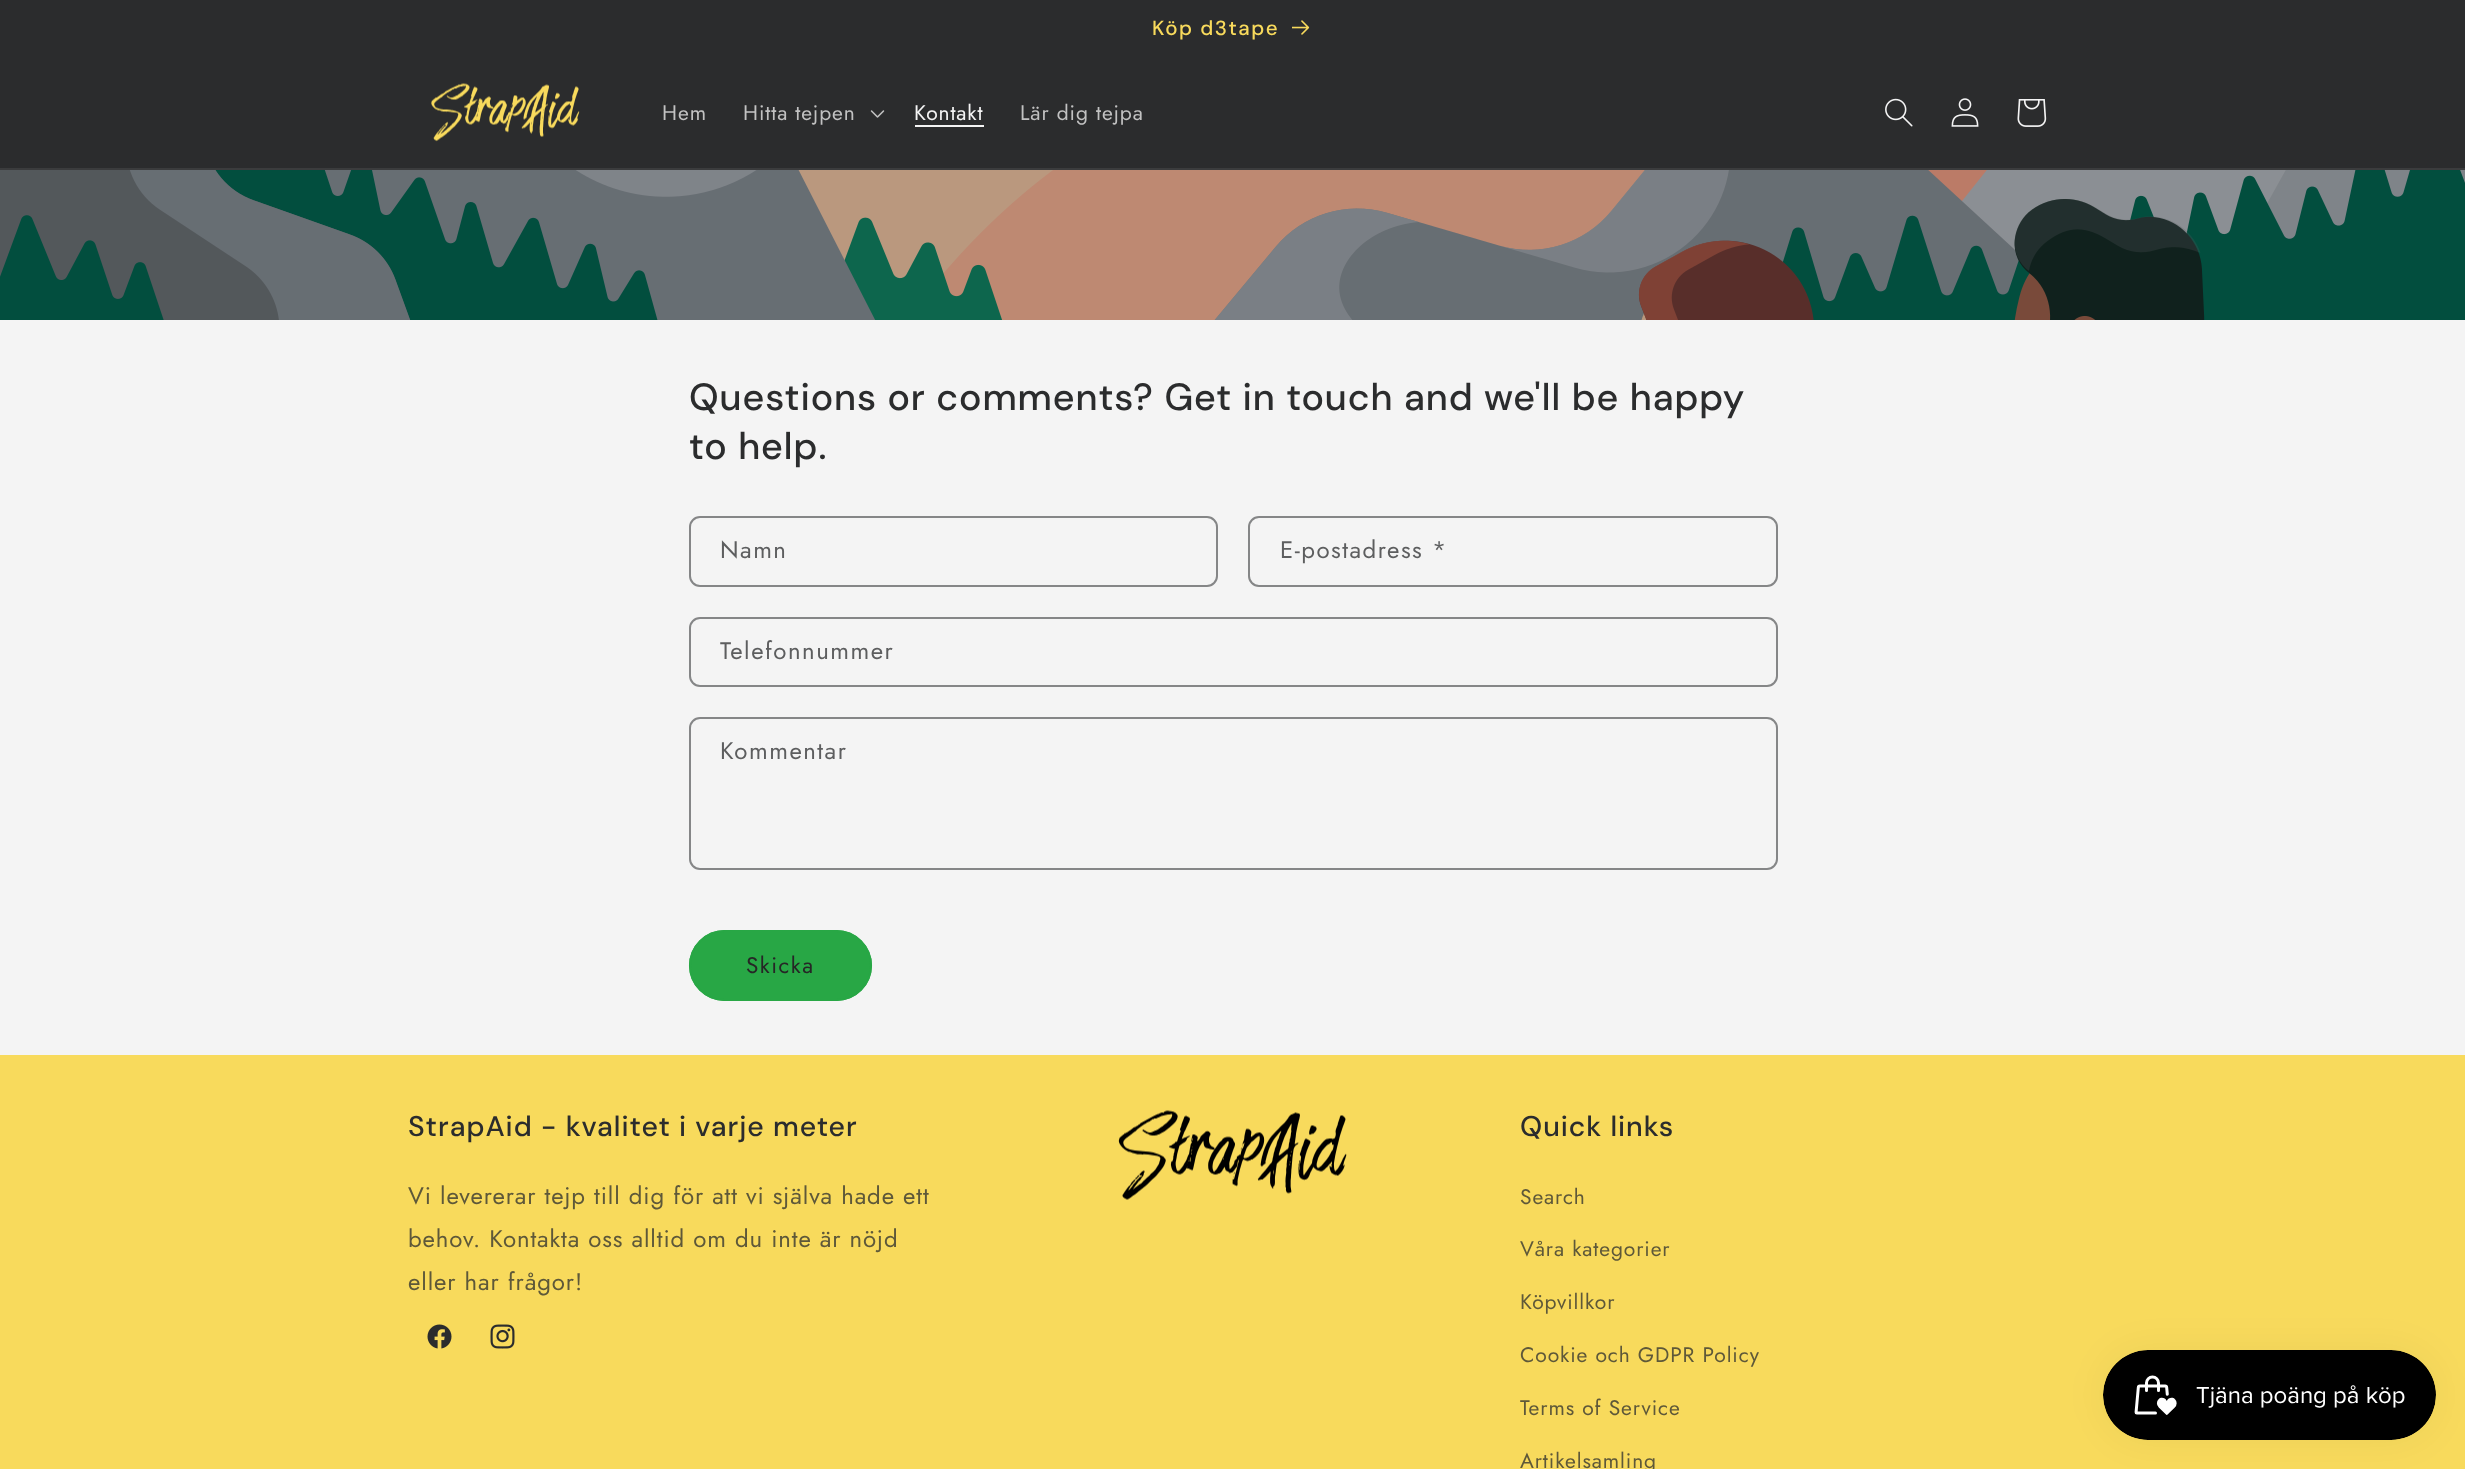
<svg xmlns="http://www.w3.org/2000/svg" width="2465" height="1469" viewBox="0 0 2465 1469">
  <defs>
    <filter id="blur1" x="-50%" y="-200%" width="200%" height="500%"><feGaussianBlur stdDeviation="19"/></filter>
  </defs>
  <rect width="100%" height="100%" fill="#f4f4f4"/>
  <rect x="0" y="0" width="2465" height="168" fill="#2b2c2d"/>
  <text x="1152" y="35" font-family="'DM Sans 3'" font-size="20.5" font-weight="500" letter-spacing="1.5" fill="#f8da5c">Köp d3tape</text>
  <image x="1292" y="20" width="18" height="15" href="img1.png"/>
  <rect x="0" y="168" width="2465" height="2" fill="#3b3c3d"/>
  <image x="431" y="83" width="149" height="59" href="img2.png"/>
  <text x="662" y="120" font-family="Jost" font-size="21" letter-spacing="0.9" fill="#c2c2c2">Hem</text>
  <text x="743" y="120" font-family="Jost" font-size="21" letter-spacing="0.9" fill="#c2c2c2">Hitta tejpen</text>
  <image x="870" y="110" width="15" height="8" href="img3.png"/>
  <text x="914" y="120" font-family="Jost" font-size="21" letter-spacing="0.9" fill="#f4f4f4">Kontakt</text>
  <rect x="915" y="125" width="69" height="2" fill="#f4f4f4"/>
  <text x="1020" y="120" font-family="Jost" font-size="21" letter-spacing="0.9" fill="#c2c2c2">Lär dig tejpa</text>
  <image x="1885" y="98" width="28" height="29" href="img4.png"/>
  <image x="1951" y="98" width="28" height="29" href="img5.png"/>
  <image x="2017" y="99" width="30" height="28" href="img6.png"/>
  <image x="0" y="170" width="2465" height="150" href="img7.png"/>
  <text x="689" y="410" font-family="DM Sans" font-size="37.8" font-weight="500" letter-spacing="0.95" fill="#2b2c2d">Questions or comments? Get in touch and we'll be happy</text>
  <text x="689" y="459" font-family="DM Sans" font-size="37.8" font-weight="500" letter-spacing="0.95" fill="#2b2c2d">to help.</text>
  <rect x="690" y="517" width="527" height="69" rx="10" fill="none" stroke="#858687" stroke-width="2"/>
  <text x="720" y="558" font-family="Jost" font-size="24" letter-spacing="1.5" fill="#5d5e5f">Namn</text>
  <rect x="1249" y="517" width="528" height="69" rx="10" fill="none" stroke="#858687" stroke-width="2"/>
  <text x="1280" y="558" font-family="Jost" font-size="24" letter-spacing="1.5" fill="#5d5e5f">E-postadress *</text>
  <rect x="690" y="618" width="1087" height="68" rx="10" fill="none" stroke="#858687" stroke-width="2"/>
  <text x="720" y="659" font-family="Jost" font-size="24" letter-spacing="1.5" fill="#5d5e5f">Telefonnummer</text>
  <rect x="690" y="718" width="1087" height="151" rx="10" fill="none" stroke="#858687" stroke-width="2"/>
  <text x="720" y="759" font-family="Jost" font-size="24" letter-spacing="1.5" fill="#5d5e5f">Kommentar</text>
  <rect x="689" y="930" width="183" height="71" rx="35.5" fill="#28a745"/>
  <rect x="690" y="931" width="181" height="69" rx="34.5" fill="none" stroke="#28a745" stroke-width="2"/>
  <text x="746" y="973" font-family="Jost" font-size="22.5" letter-spacing="1.5" fill="#262626">Skicka</text>
  <rect x="0" y="1055" width="2465" height="414" fill="#f8da5c"/>
  <text x="408" y="1136" font-family="'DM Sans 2'" font-size="28.4" font-weight="500" letter-spacing="0.95" fill="#2b2c2d">StrapAid - kvalitet i varje meter</text>
  <text x="408" y="1204" font-family="Jost" font-size="24" letter-spacing="0.9" fill="#5e5839">Vi levererar tejp till dig för att vi själva hade ett</text>
  <text x="408" y="1247" font-family="Jost" font-size="24" letter-spacing="0.9" fill="#5e5839">behov. Kontakta oss alltid om du inte är nöjd</text>
  <text x="408" y="1290" font-family="Jost" font-size="24" letter-spacing="0.9" fill="#5e5839">eller har frågor!</text>
  <image x="427" y="1324" width="25" height="25" href="img8.png"/>
  <image x="490" y="1324" width="25" height="25" href="img9.png"/>
  <image x="1118" y="1110" width="229" height="90" href="img10.png"/>
  <text x="1520" y="1136" font-family="'DM Sans 2'" font-size="28.4" font-weight="500" letter-spacing="0.95" fill="#2b2c2d">Quick links</text>
  <text x="1520" y="1204" font-family="Jost" font-size="21" letter-spacing="0.9" fill="#5e5839">Search</text>
  <text x="1520" y="1256" font-family="Jost" font-size="21" letter-spacing="0.9" fill="#5e5839">Våra kategorier</text>
  <text x="1520" y="1309" font-family="Jost" font-size="21" letter-spacing="0.9" fill="#5e5839">Köpvillkor</text>
  <text x="1520" y="1362" font-family="Jost" font-size="21" letter-spacing="0.9" fill="#5e5839">Cookie och GDPR Policy</text>
  <text x="1520" y="1415" font-family="Jost" font-size="21" letter-spacing="0.9" fill="#5e5839">Terms of Service</text>
  <text x="1520" y="1468" font-family="Jost" font-size="21" letter-spacing="0.9" fill="#5e5839">Artikelsamling</text>
  <rect x="2103" y="1350" width="333" height="90" rx="45" fill="#000000" fill-opacity="0.05" filter="url(#blur1)"/>
  <image x="2103" y="1350" width="333" height="90" href="img11.png"/>
</svg>
